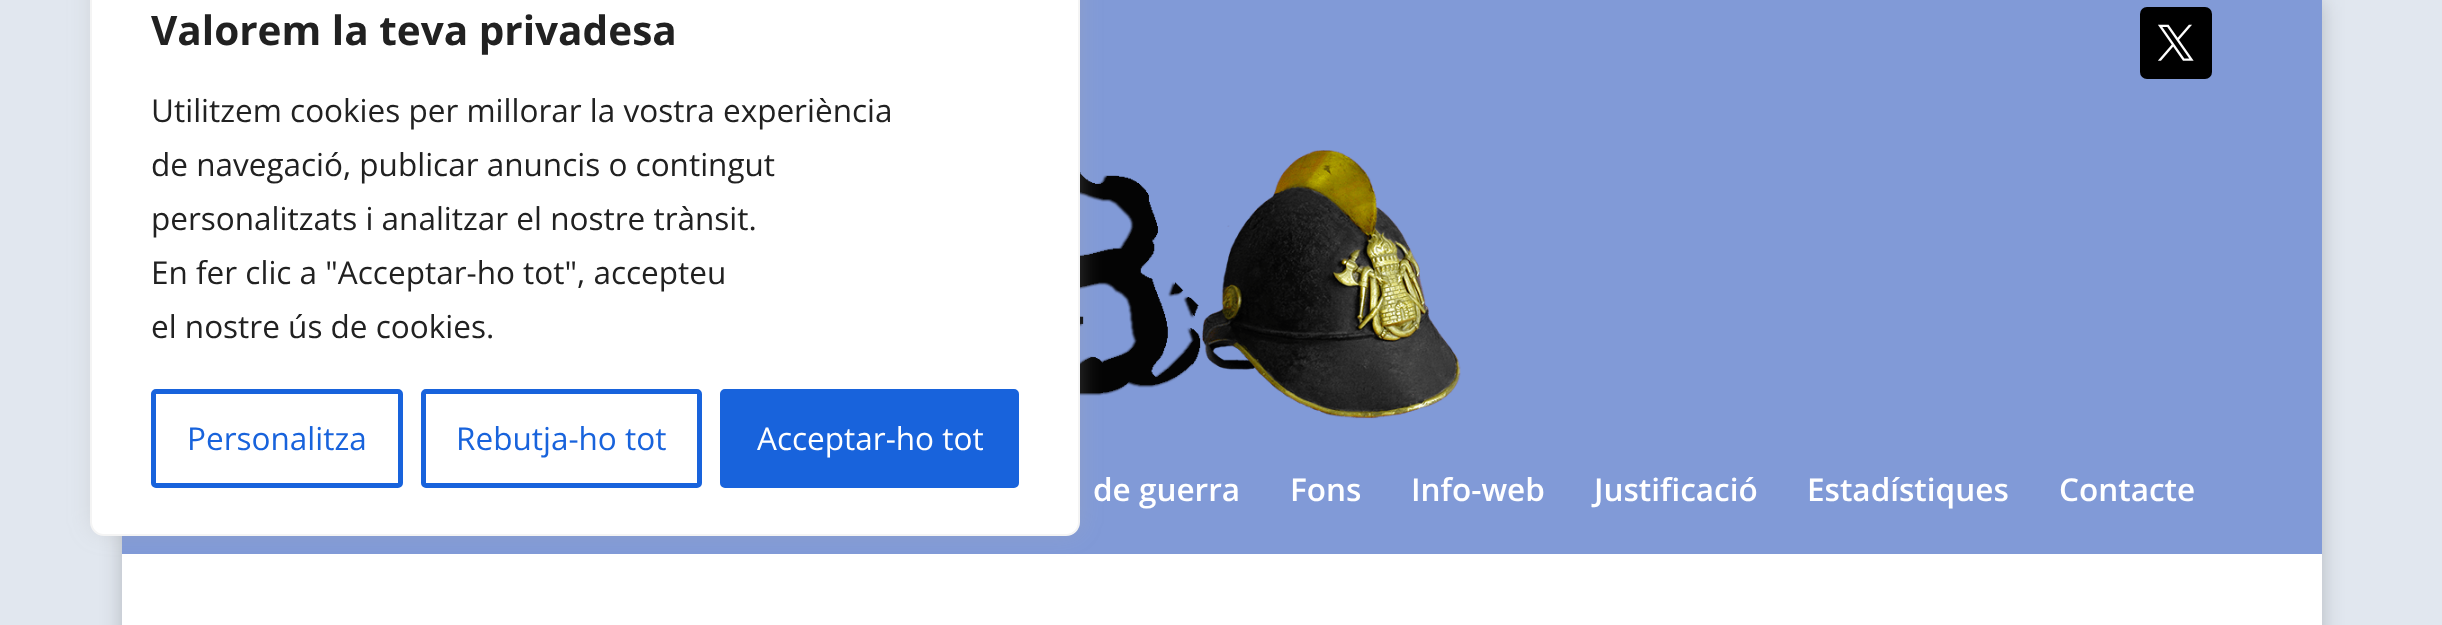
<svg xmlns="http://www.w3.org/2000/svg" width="2442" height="625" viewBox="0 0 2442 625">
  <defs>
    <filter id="blur1" x="-50%" y="-200%" width="200%" height="500%"><feGaussianBlur stdDeviation="11"/></filter>
  </defs>
  <rect width="100%" height="100%" fill="#e1e7ef"/>
  <rect x="122" y="0" width="2200" height="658" fill="#000000" fill-opacity="0.2" filter="url(#blur1)"/>
  <rect x="122" y="0" width="2200" height="554" fill="#819ad7"/>
  <image x="1080" y="150" width="381" height="269" href="img2.png"/>
  <rect x="122" y="554" width="2200" height="71" fill="#ffffff"/>
  <rect x="90" y="-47" width="990" height="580" rx="14" fill="#acabab" fill-opacity="0.3" filter="url(#blur1)"/>
  <rect x="91" y="-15" width="988" height="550" rx="13" fill="#ffffff" stroke="#f4f4f4" stroke-width="2"/>
  <text x="151" y="45" font-family="Open Sans" font-size="40.5" font-weight="bold" fill="#212121">Valorem la teva privadesa</text>
  <text x="151" y="122" font-family="Open Sans" font-size="31.5" fill="#212121">Utilitzem cookies per millorar la vostra experiència</text>
  <text x="151" y="176" font-family="Open Sans" font-size="31.5" fill="#212121">de navegació, publicar anuncis o contingut</text>
  <text x="151" y="230" font-family="Open Sans" font-size="31.5" fill="#212121">personalitzats i analitzar el nostre trànsit.</text>
  <text x="151" y="284" font-family="Open Sans" font-size="31.5" fill="#212121">En fer clic a "Acceptar-ho tot", accepteu</text>
  <text x="151" y="338" font-family="Open Sans" font-size="31.5" fill="#212121">el nostre ús de cookies.</text>
  <rect x="153.5" y="391.5" width="247" height="94" rx="2.5" fill="none" stroke="#1863dc" stroke-width="5"/>
  <text x="187" y="450" font-family="Open Sans" font-size="31.5" fill="#1863dc">Personalitza</text>
  <rect x="423.5" y="391.5" width="276" height="94" rx="2.5" fill="none" stroke="#1863dc" stroke-width="5"/>
  <text x="456" y="450" font-family="Open Sans" font-size="31.5" fill="#1863dc">Rebutja-ho tot</text>
  <rect x="722.5" y="391.5" width="294" height="94" rx="2.5" fill="#1863dc" stroke="#1863dc" stroke-width="5"/>
  <text x="757" y="450" font-family="Open Sans" font-size="31.5" fill="#ffffff">Acceptar-ho tot</text>
  <rect x="2140" y="7" width="72" height="72" rx="7" fill="#000000"/>
  <image x="2158" y="24" width="36" height="37" href="img1.png"/>
  <text x="1093" y="501" font-family="Open Sans" font-size="31.5" font-weight="600" fill="#ffffff">de guerra</text>
  <text x="1290" y="501" font-family="Open Sans" font-size="31.5" font-weight="600" fill="#ffffff">Fons</text>
  <text x="1411" y="501" font-family="Open Sans" font-size="31.5" font-weight="600" fill="#ffffff">Info-web</text>
  <text x="1594" y="501" font-family="Open Sans" font-size="31.5" font-weight="600" fill="#ffffff">Justificació</text>
  <text x="1807" y="501" font-family="Open Sans" font-size="31.5" font-weight="600" fill="#ffffff">Estadístiques</text>
  <text x="2059" y="501" font-family="Open Sans" font-size="31.5" font-weight="600" fill="#ffffff">Contacte</text>
</svg>
